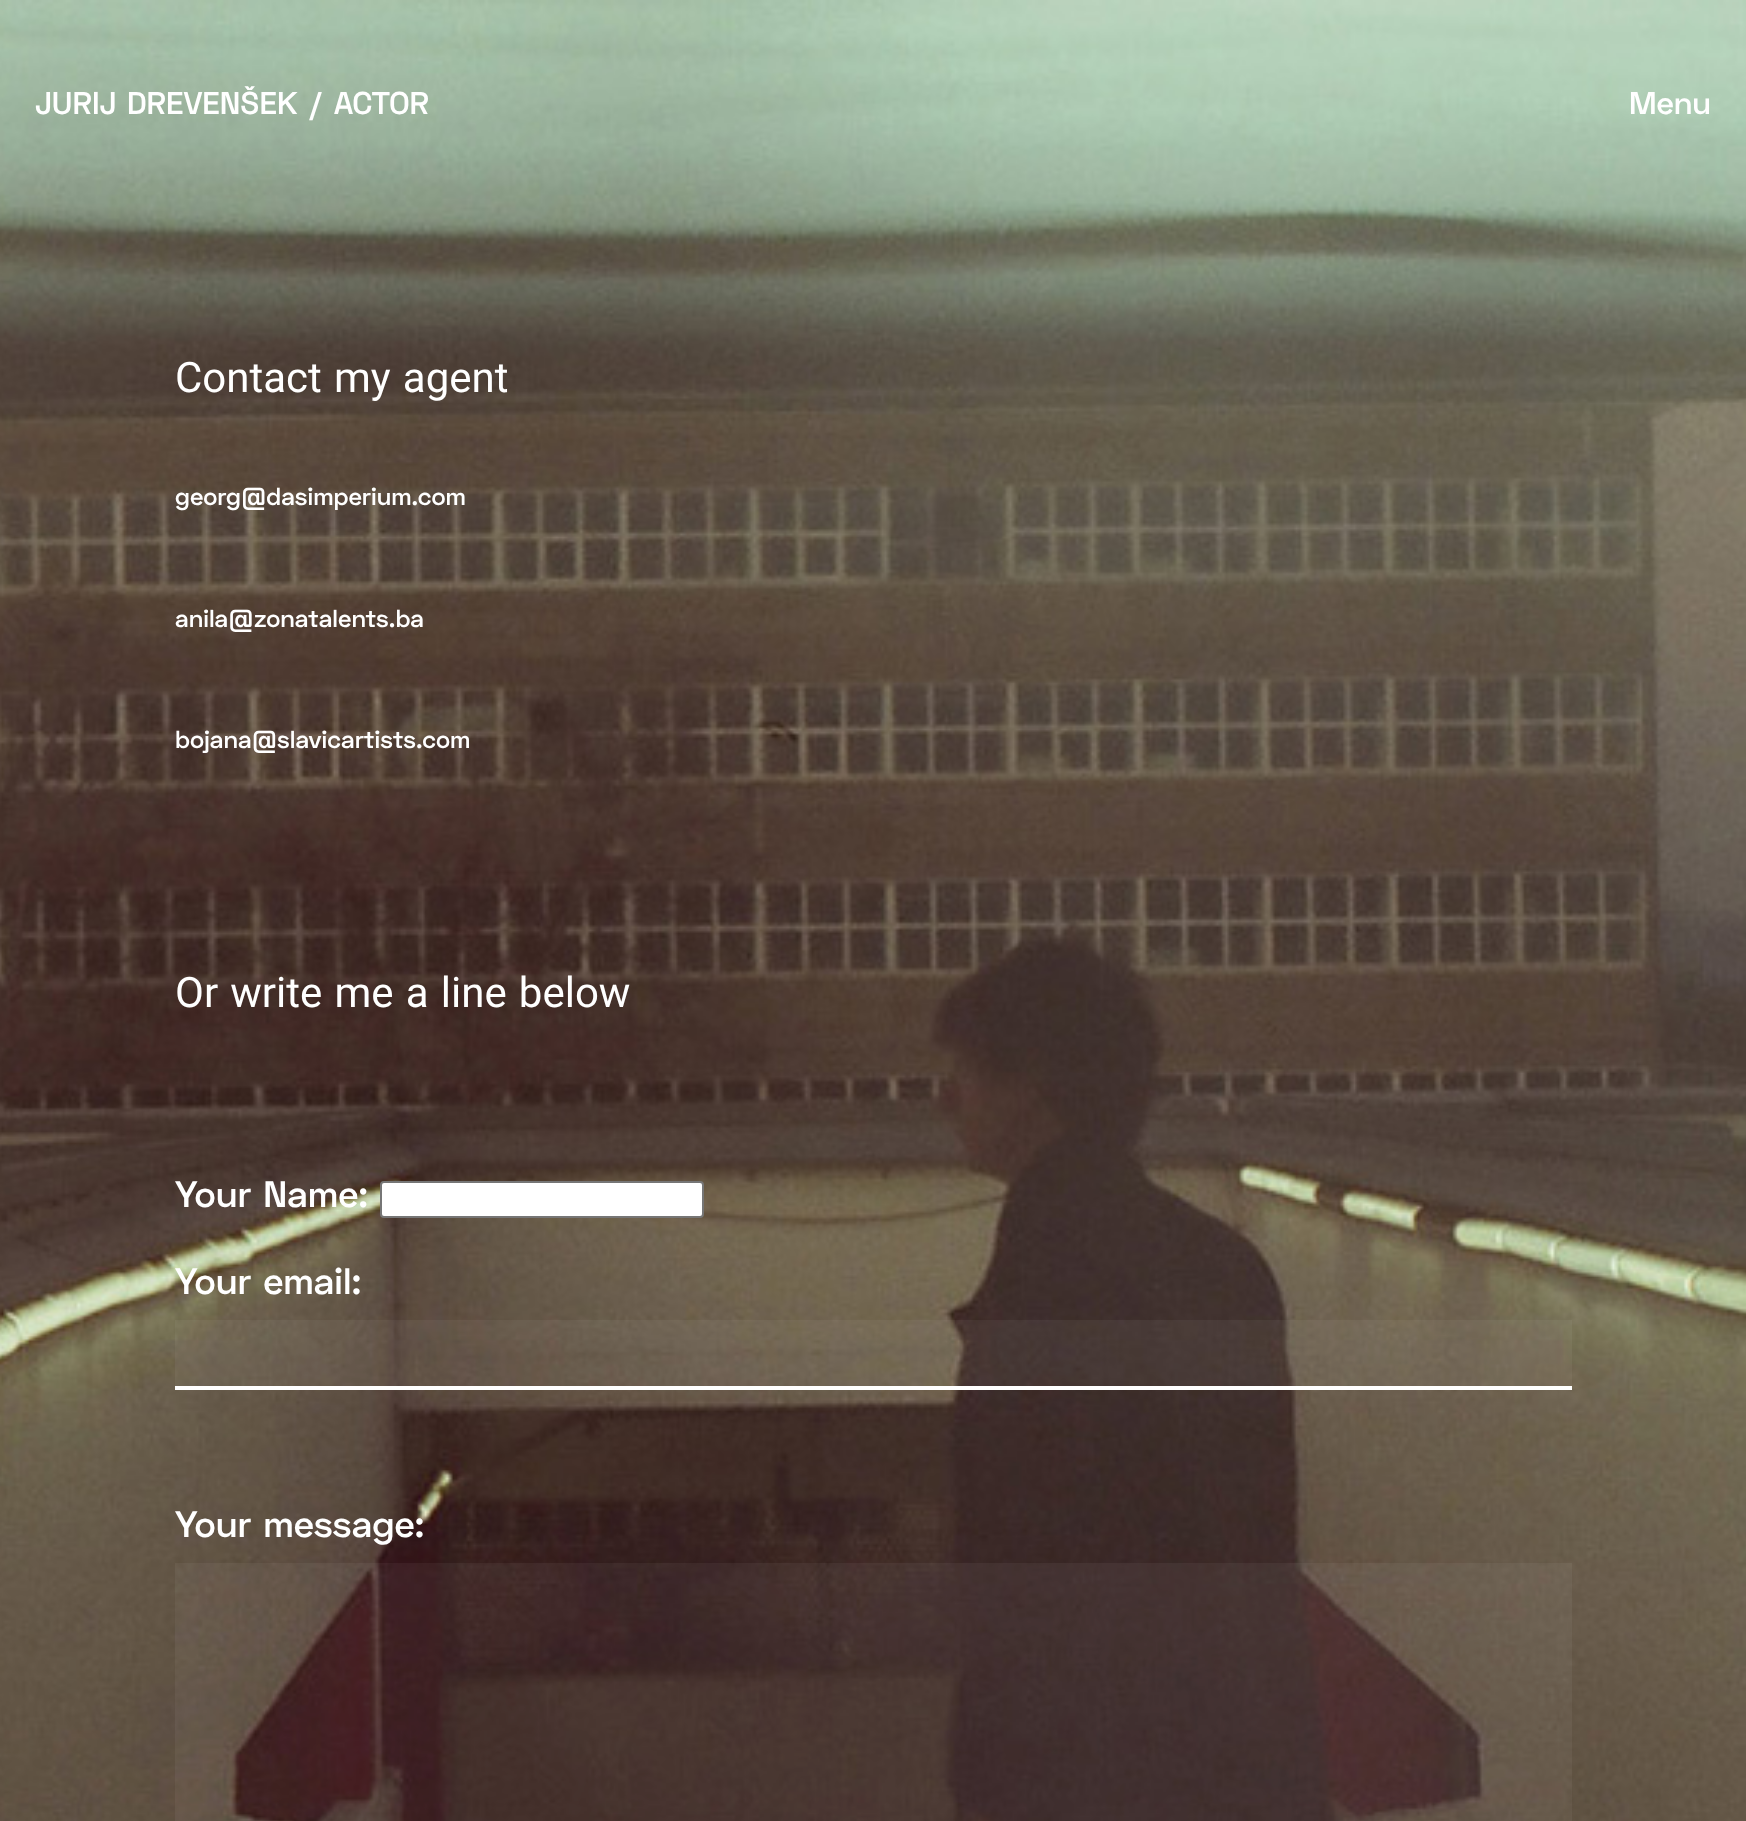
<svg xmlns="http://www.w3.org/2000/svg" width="1746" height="1821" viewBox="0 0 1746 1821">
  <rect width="100%" height="100%" fill="#ffffff"/>
  <image x="0" y="0" width="1746" height="1821" href="img1.png"/>
  <text x="35" y="114" word-spacing="1.75" font-family="Space Grotesk" font-size="31.5" font-weight="600" fill="#ffffff">JURIJ DREVENŠEK / ACTOR</text>
  <text x="1629" y="114" font-family="Space Grotesk" font-size="31.5" font-weight="600" fill="#ffffff">Menu</text>
  <text x="175" y="392" word-spacing="1.75" font-family="Roboto" font-size="42" fill="#ffffff">Contact my agent</text>
  <text x="175" y="505" font-family="Space Grotesk" font-size="24.5" font-weight="600" fill="#ffffff">georg@dasimperium.com</text>
  <text x="175" y="627" font-family="Space Grotesk" font-size="24.5" font-weight="600" fill="#ffffff">anila@zonatalents.ba</text>
  <text x="175" y="748" font-family="Space Grotesk" font-size="24.5" font-weight="600" fill="#ffffff">bojana@slavicartists.com</text>
  <text x="175" y="1007" word-spacing="1.75" font-family="Roboto" font-size="42" fill="#ffffff">Or write me a line below</text>
  <text x="175" y="1207" word-spacing="1.75" font-family="Space Grotesk" font-size="36.75" font-weight="600" fill="#ffffff">Your Name:</text>
  <rect x="381" y="1182" width="322" height="35" rx="3" fill="#ffffff" stroke="#767676" stroke-width="2"/>
  <text x="175" y="1294" word-spacing="1.75" font-family="Space Grotesk" font-size="36.75" font-weight="600" fill="#ffffff">Your email:</text>
  <rect x="175" y="1320" width="1397" height="66" fill="#ffffff" fill-opacity="0.05"/>
  <rect x="175" y="1386" width="1397" height="4" fill="#ffffff"/>
  <text x="175" y="1537" word-spacing="1.75" font-family="Space Grotesk" font-size="36.75" font-weight="600" fill="#ffffff">Your message:</text>
  <rect x="175" y="1563" width="1397" height="258" fill="#ffffff" fill-opacity="0.05"/>
</svg>
